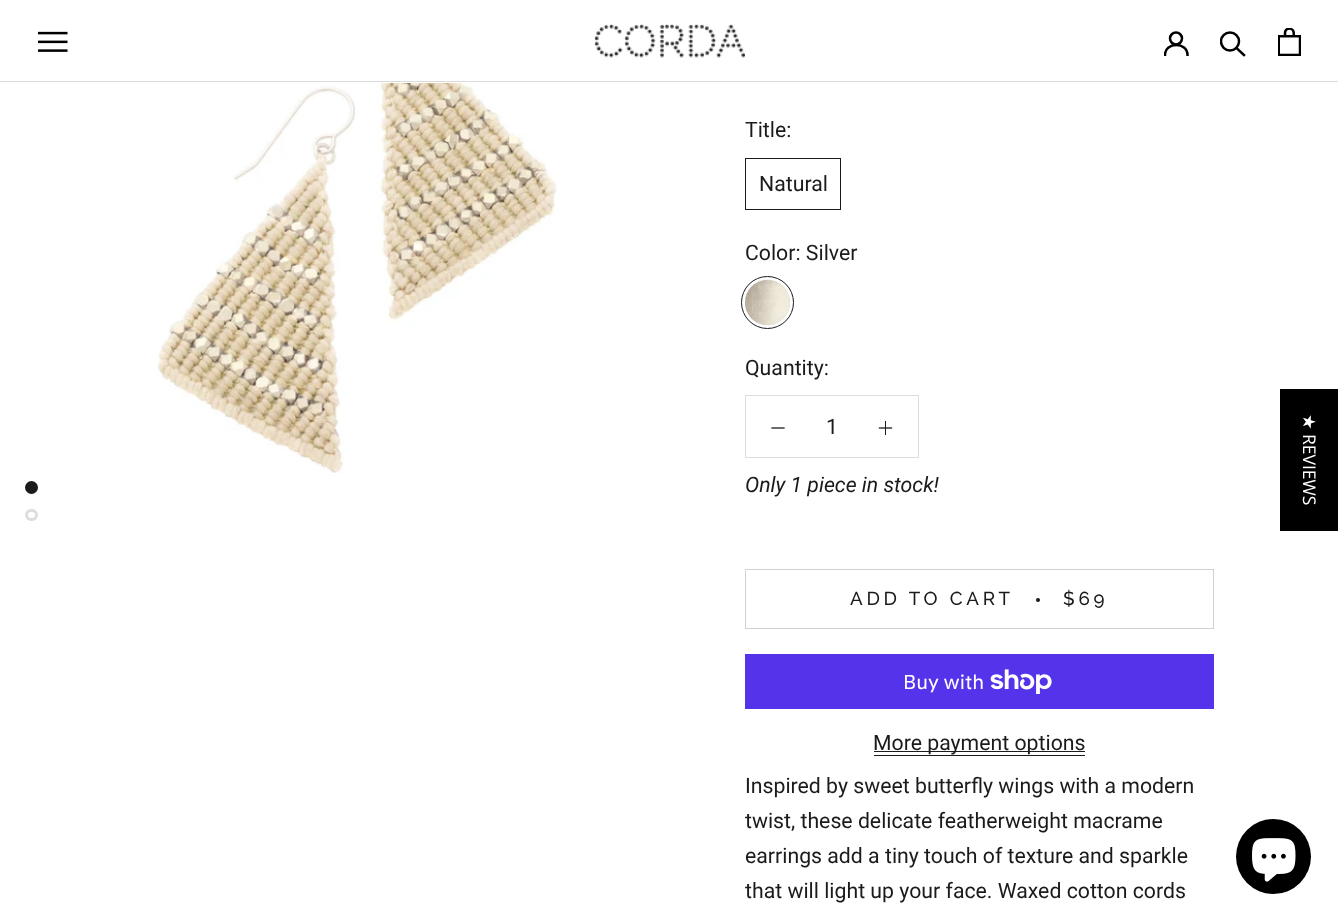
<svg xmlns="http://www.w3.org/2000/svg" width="1338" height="919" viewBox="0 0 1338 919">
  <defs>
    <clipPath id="clip1"><rect x="1164" y="31" width="25" height="25"/></clipPath>
    <clipPath id="clip2"><rect x="1220" y="31" width="26" height="27"/></clipPath>
  </defs>
  <rect width="100%" height="100%" fill="#ffffff"/>
  <rect x="0" y="81" width="1338" height="1" fill="#d9d9d9"/>
  <image x="38" y="31" width="30" height="21" href="img1.png"/>
  <image x="594" y="23" width="151" height="35" href="img2.png"/>
  <g clip-path="url(#clip1)">
    <path d="M1165 55C1165 41.5 1187.5 41.5 1187.5 55" fill="none" stroke="#000000" stroke-width="2.5" stroke-linecap="square"/>
  </g>
  <circle cx="1176" cy="38.5" r="6" fill="none" stroke="#000000" stroke-width="2.5"/>
  <path d="M1244 55L1236.5 48" fill="none" stroke="#000000" stroke-width="2.5" stroke-linecap="square"/>
  <g clip-path="url(#clip2)">
    <circle cx="1230" cy="41.5" r="9" fill="none" stroke="#000000" stroke-width="2.5"/>
  </g>
  <image x="1278" y="28" width="23" height="28" href="img3.png"/>
  <image x="157" y="83" width="400" height="390" href="img4.png"/>
  <circle cx="31.5" cy="487.5" r="5" fill="#1c1b1b" stroke="#1c1b1b" stroke-width="3"/>
  <rect x="26.5" y="510.5" width="10" height="9" rx="4.5" fill="none" stroke="#dddddd" stroke-width="3"/>
  <text x="745" y="137" font-family="Roboto" font-size="21.25" fill="#1c1b1b">Title:</text>
  <rect x="745.5" y="158.5" width="95" height="51" fill="none" stroke="#1c1b1b"/>
  <text x="759" y="191" font-family="Roboto" font-size="21.25" fill="#1c1b1b">Natural</text>
  <text x="745" y="260" font-family="Roboto" font-size="21.25" fill="#1c1b1b">Color: Silver</text>
  <circle cx="767.5" cy="302.5" r="22.5" fill="#c0c0c0"/>
  <image x="745" y="279" width="45" height="47" href="img5.png"/>
  <circle cx="767.5" cy="302.5" r="26" fill="none" stroke="#1c1b1b"/>
  <text x="745" y="375" font-family="Roboto" font-size="21.25" fill="#1c1b1b">Quantity:</text>
  <rect x="745.5" y="395.5" width="173" height="62" fill="none" stroke="#dddddd"/>
  <path d="M772 428H784" fill="none" stroke="#1c1b1b" stroke-width="1.3" stroke-linecap="square"/>
  <text x="826" y="434" font-family="Roboto" font-size="21.25" fill="#1c1b1b">1</text>
  <rect x="885" y="421" width="1" height="14" fill="#1c1b1b"/>
  <path d="M879.5 428H891.5" fill="none" stroke="#1c1b1b" stroke-width="1.3" stroke-linecap="square"/>
  <text x="745" y="492" font-family="Roboto" font-size="21.25" font-style="italic" fill="#1c1b1b">Only 1 piece in stock!</text>
  <rect x="745.5" y="569.5" width="468" height="59" fill="none" stroke="#d2d1d1"/>
  <text x="850" y="605" font-family="Raleway" font-size="18.75" font-weight="500" letter-spacing="3.75" fill="#1c1b1b">ADD TO CART</text>
  <circle cx="1038" cy="600" r="2" fill="#1c1b1b"/>
  <text x="1063" y="605" font-family="Raleway" font-size="18.75" font-weight="500" letter-spacing="3.75" fill="#1c1b1b">$69</text>
  <rect x="745" y="654" width="469" height="55" fill="#5433eb"/>
  <text x="903" y="689" font-family="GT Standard" font-size="20" fill="#ffffff">Buy with</text>
  <image x="990" y="669" width="62" height="25" href="img6.png"/>
  <rect x="874" y="751" width="211" height="1" fill="#1c1b1b"/>
  <text x="873" y="750" font-family="Roboto" font-size="21.25" fill="#1c1b1b">More payment options</text>
  <rect x="874" y="755" width="211" height="1" fill="#1c1b1b"/>
  <text x="745" y="793" font-family="Roboto" font-size="21.25" fill="#1c1b1b">Inspired by sweet butterfly wings with a modern</text>
  <text x="745" y="828" font-family="Roboto" font-size="21.25" fill="#1c1b1b">twist, these delicate featherweight macrame</text>
  <text x="745" y="863" font-family="Roboto" font-size="21.25" fill="#1c1b1b">earrings add a tiny touch of texture and sparkle</text>
  <text x="745" y="898" font-family="Roboto" font-size="21.25" fill="#1c1b1b">that will light up your face. Waxed cotton cords</text>
  <rect x="1280" y="389" width="58" height="142" fill="#000000"/>
  <text x="1303" y="414" transform="rotate(90 1303 414)" font-family="DejaVu Sans" font-size="17.5" fill="#ffffff">★</text>
  <text x="1303" y="434" transform="rotate(90 1303 434)" font-family="Open Sans" font-size="17.5" fill="#ffffff">REVIEWS</text>
  <circle cx="1273.5" cy="856.5" r="37.5" fill="#000000"/>
  <image x="1252" y="838" width="44" height="44" href="img7.png"/>
</svg>
